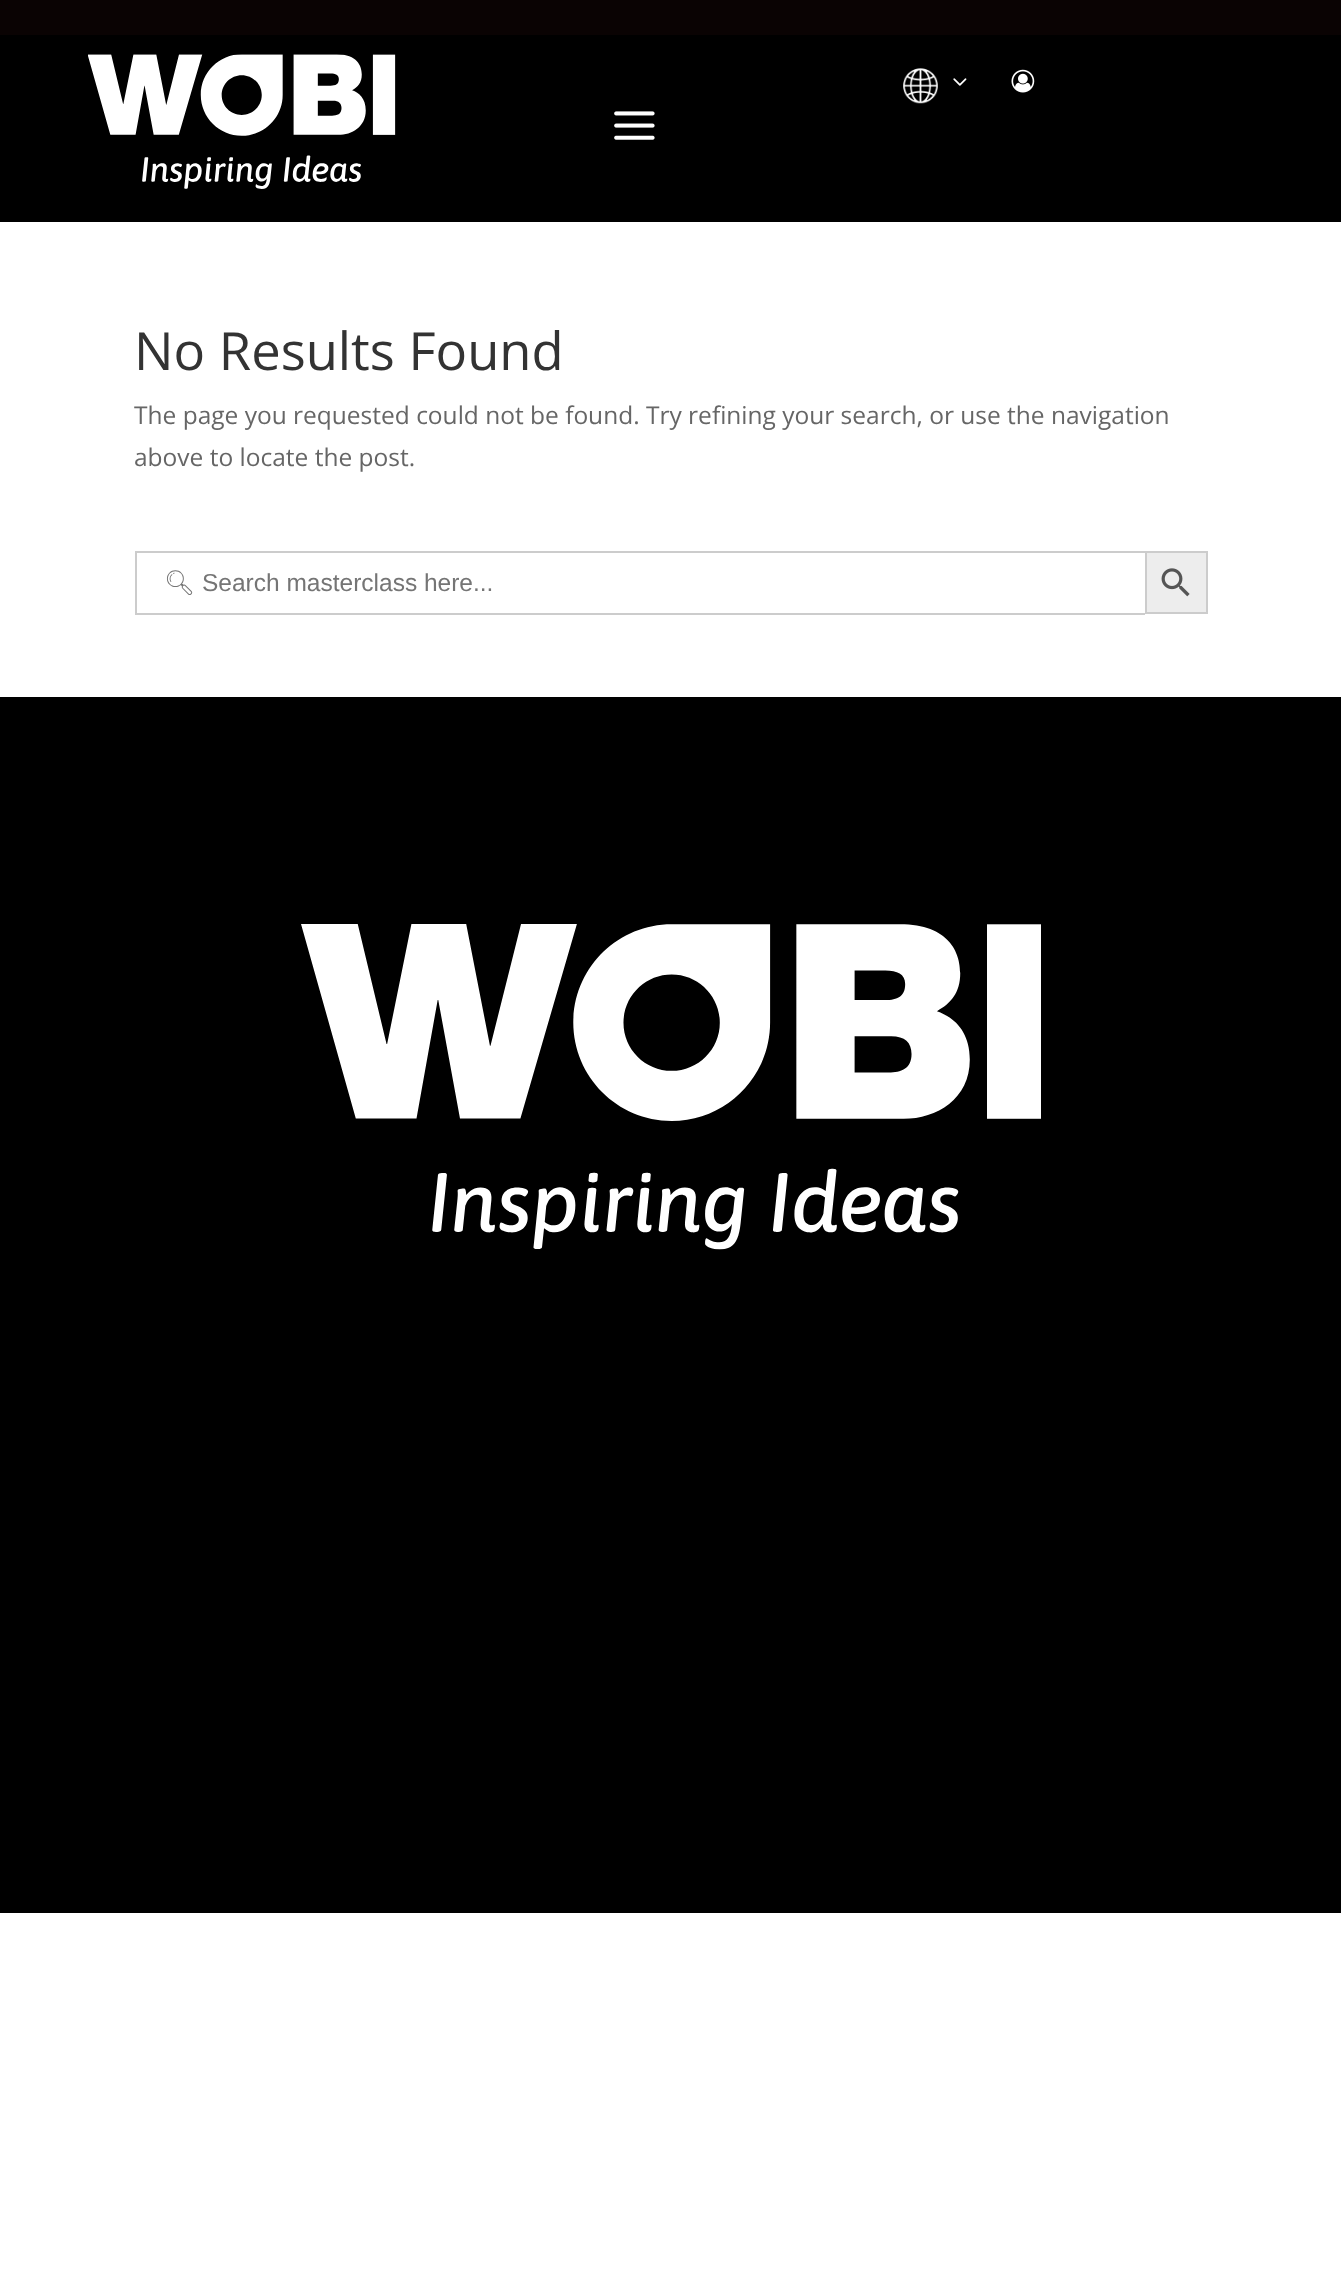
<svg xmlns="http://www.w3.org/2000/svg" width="1341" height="2273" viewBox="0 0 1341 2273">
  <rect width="100%" height="100%" fill="#ffffff"/>
  <rect x="0" y="0" width="1341" height="35" fill="#0a0303"/>
  <rect x="0" y="35" width="1341" height="187" fill="#000000"/>
  <image x="88" y="54" width="308" height="135" href="img1.png"/>
  <image x="614" y="111" width="41" height="29" href="img2.png"/>
  <image x="903" y="68" width="35" height="36" href="img3.png"/>
  <image x="953" y="78" width="14" height="8" href="img4.png"/>
  <image x="1011" y="69" width="24" height="24" href="img5.png"/>
  <text x="134" y="370" font-family="Open Sans" font-size="52.5" fill="#333333">No Results Found</text>
  <text x="134" y="424" font-family="Open Sans" font-size="24.5" fill="#666666">The page you requested could not be found. Try refining your search, or use the navigation</text>
  <text x="134" y="466" font-family="Open Sans" font-size="24.5" fill="#666666">above to locate the post.</text>
  <rect x="135" y="551" width="1010" height="2" fill="#cccccc"/>
  <rect x="135" y="613" width="1010" height="2" fill="#cccccc"/>
  <rect x="135" y="551" width="2" height="63" fill="#cccccc"/>
  <text x="164" y="591" font-family="Noto Emoji" font-size="24.5" fill="#757575">🔍︎</text>
  <text x="202" y="591" font-family="Liberation Sans" font-size="24.5" fill="#757575">Search masterclass here...</text>
  <rect x="1146" y="552" width="61" height="61" fill="#ededed" stroke="#cccccc" stroke-width="2"/>
  <image x="1161" y="568" width="29" height="29" href="img6.png"/>
  <rect x="0" y="697" width="1341" height="1216" fill="#000000"/>
  <image x="301" y="924" width="740" height="326" href="img7.png"/>
</svg>
